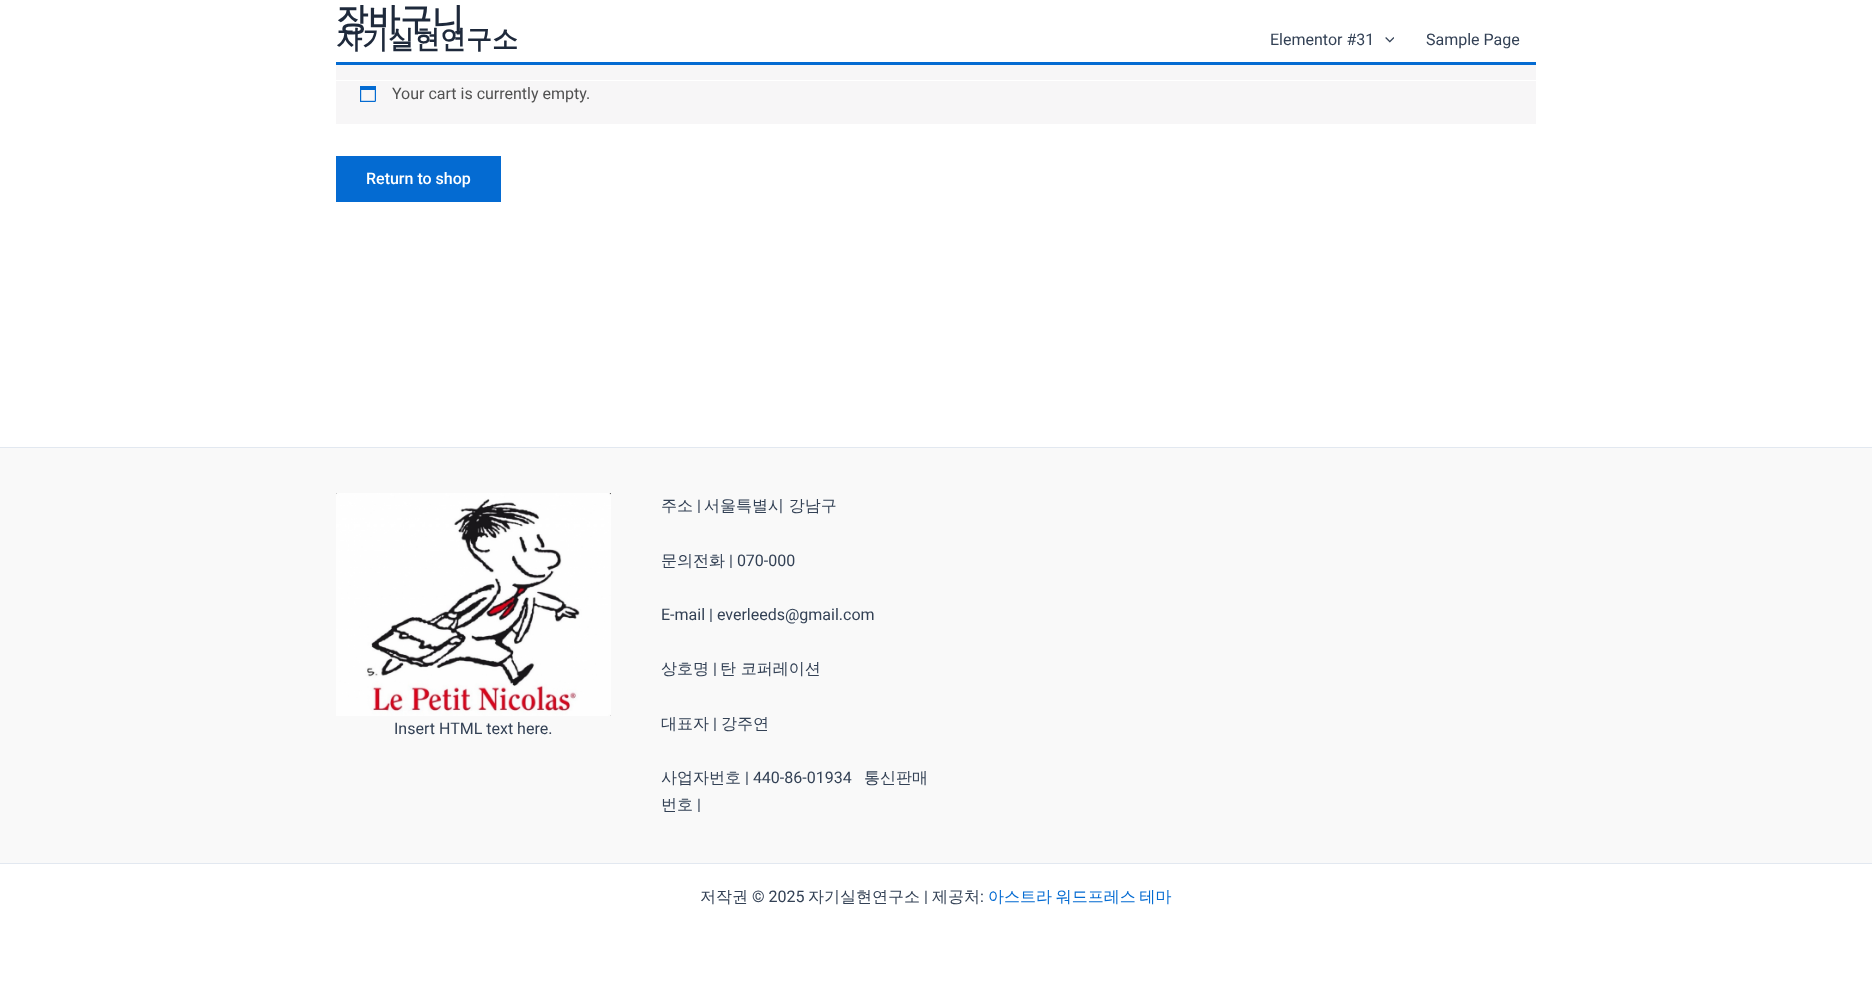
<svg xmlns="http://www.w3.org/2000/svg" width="1872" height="984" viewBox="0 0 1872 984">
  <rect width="100%" height="100%" fill="#ffffff"/>
  <text x="336" y="30" font-family="WenQuanYi Zen Hei" font-size="32" font-weight="bold" fill="#1e293b">장바구니</text>
  <rect x="336" y="65" width="1200" height="59" fill="#f7f6f7"/>
  <rect x="336" y="62" width="1200" height="3" fill="#046bd2"/>
  <image x="360" y="86" width="16" height="16" href="img1.png"/>
  <text x="392" y="99" font-family="Roboto" font-size="16" fill="#515151">Your cart is currently empty.</text>
  <rect x="336" y="156" width="165" height="46" fill="#046bd2"/>
  <text x="366" y="184" font-family="Roboto" font-size="16" font-weight="500" fill="#ffffff">Return to shop</text>
  <rect x="336" y="80" width="1200" height="1" fill="#ffffff"/>
  <text x="336" y="48" font-family="WenQuanYi Zen Hei" font-size="26" font-weight="bold" fill="#1e293b">자기실현연구소</text>
  <text x="1270" y="45" font-family="Roboto" font-size="16" fill="#334155">Elementor #31</text>
  <image x="1385" y="37" width="9" height="6" href="img2.png"/>
  <text x="1426" y="45" font-family="Roboto" font-size="16" fill="#334155">Sample Page</text>
  <rect x="0" y="448" width="1872" height="415" fill="#f9f9f9"/>
  <rect x="0" y="447" width="1872" height="1" fill="#e2e8f0"/>
  <image x="336" y="493" width="275" height="223" href="img3.png"/>
  <text x="394" y="734" font-family="Roboto" font-size="16" fill="#334155">Insert HTML text here.</text>
  <text x="661" y="511" font-family="WenQuanYi Zen Hei" font-size="16" font-weight="500" fill="#334155">주소</text>
  <text x="697" y="511" font-family="Roboto" font-size="16" fill="#334155">|</text>
  <text x="704" y="511" font-family="WenQuanYi Zen Hei" font-size="16" font-weight="500" fill="#334155">서울특별시 강남구</text>
  <text x="661" y="566" font-family="WenQuanYi Zen Hei" font-size="16" font-weight="500" fill="#334155">문의전화</text>
  <text x="729" y="566" font-family="Roboto" font-size="16" fill="#334155">| 070-000</text>
  <text x="661" y="620" font-family="Roboto" font-size="16" fill="#334155">E-mail | everleeds@gmail.com</text>
  <text x="661" y="674" font-family="WenQuanYi Zen Hei" font-size="16" font-weight="500" fill="#334155">상호명</text>
  <text x="713" y="674" font-family="Roboto" font-size="16" fill="#334155">|</text>
  <text x="720" y="674" font-family="WenQuanYi Zen Hei" font-size="16" font-weight="500" fill="#334155">탄 코퍼레이션</text>
  <text x="661" y="729" font-family="WenQuanYi Zen Hei" font-size="16" font-weight="500" fill="#334155">대표자</text>
  <text x="713" y="729" font-family="Roboto" font-size="16" fill="#334155">|</text>
  <text x="721" y="729" font-family="WenQuanYi Zen Hei" font-size="16" font-weight="500" fill="#334155">강주연</text>
  <text x="661" y="783" font-family="WenQuanYi Zen Hei" font-size="16" font-weight="500" fill="#334155">사업자번호</text>
  <text x="745" y="783" font-family="Roboto" font-size="16" fill="#334155">| 440-86-01934</text>
  <text x="864" y="783" font-family="WenQuanYi Zen Hei" font-size="16" font-weight="500" fill="#334155">통신판매</text>
  <text x="661" y="810" font-family="WenQuanYi Zen Hei" font-size="16" font-weight="500" fill="#334155">번호</text>
  <text x="697" y="810" font-family="Roboto" font-size="16" fill="#334155">|</text>
  <rect x="0" y="863" width="1872" height="1" fill="#e2e8f0"/>
  <text x="700" y="902" font-family="WenQuanYi Zen Hei" font-size="16" font-weight="500" fill="#334155">저작권</text>
  <text x="752" y="902" font-family="Roboto" font-size="16" fill="#334155">© 2025</text>
  <text x="808" y="902" font-family="WenQuanYi Zen Hei" font-size="16" font-weight="500" fill="#334155">자기실현연구소</text>
  <text x="924" y="902" font-family="Roboto" font-size="16" fill="#334155">|</text>
  <text x="932" y="902" font-family="WenQuanYi Zen Hei" font-size="16" font-weight="500" fill="#334155">제공처</text>
  <text x="980" y="902" font-family="Roboto" font-size="16" fill="#334155">:</text>
  <text x="988" y="902" word-spacing="-1" font-family="WenQuanYi Zen Hei" font-size="16" font-weight="500" fill="#046bd2">아스트라 워드프레스 테마</text>
</svg>
